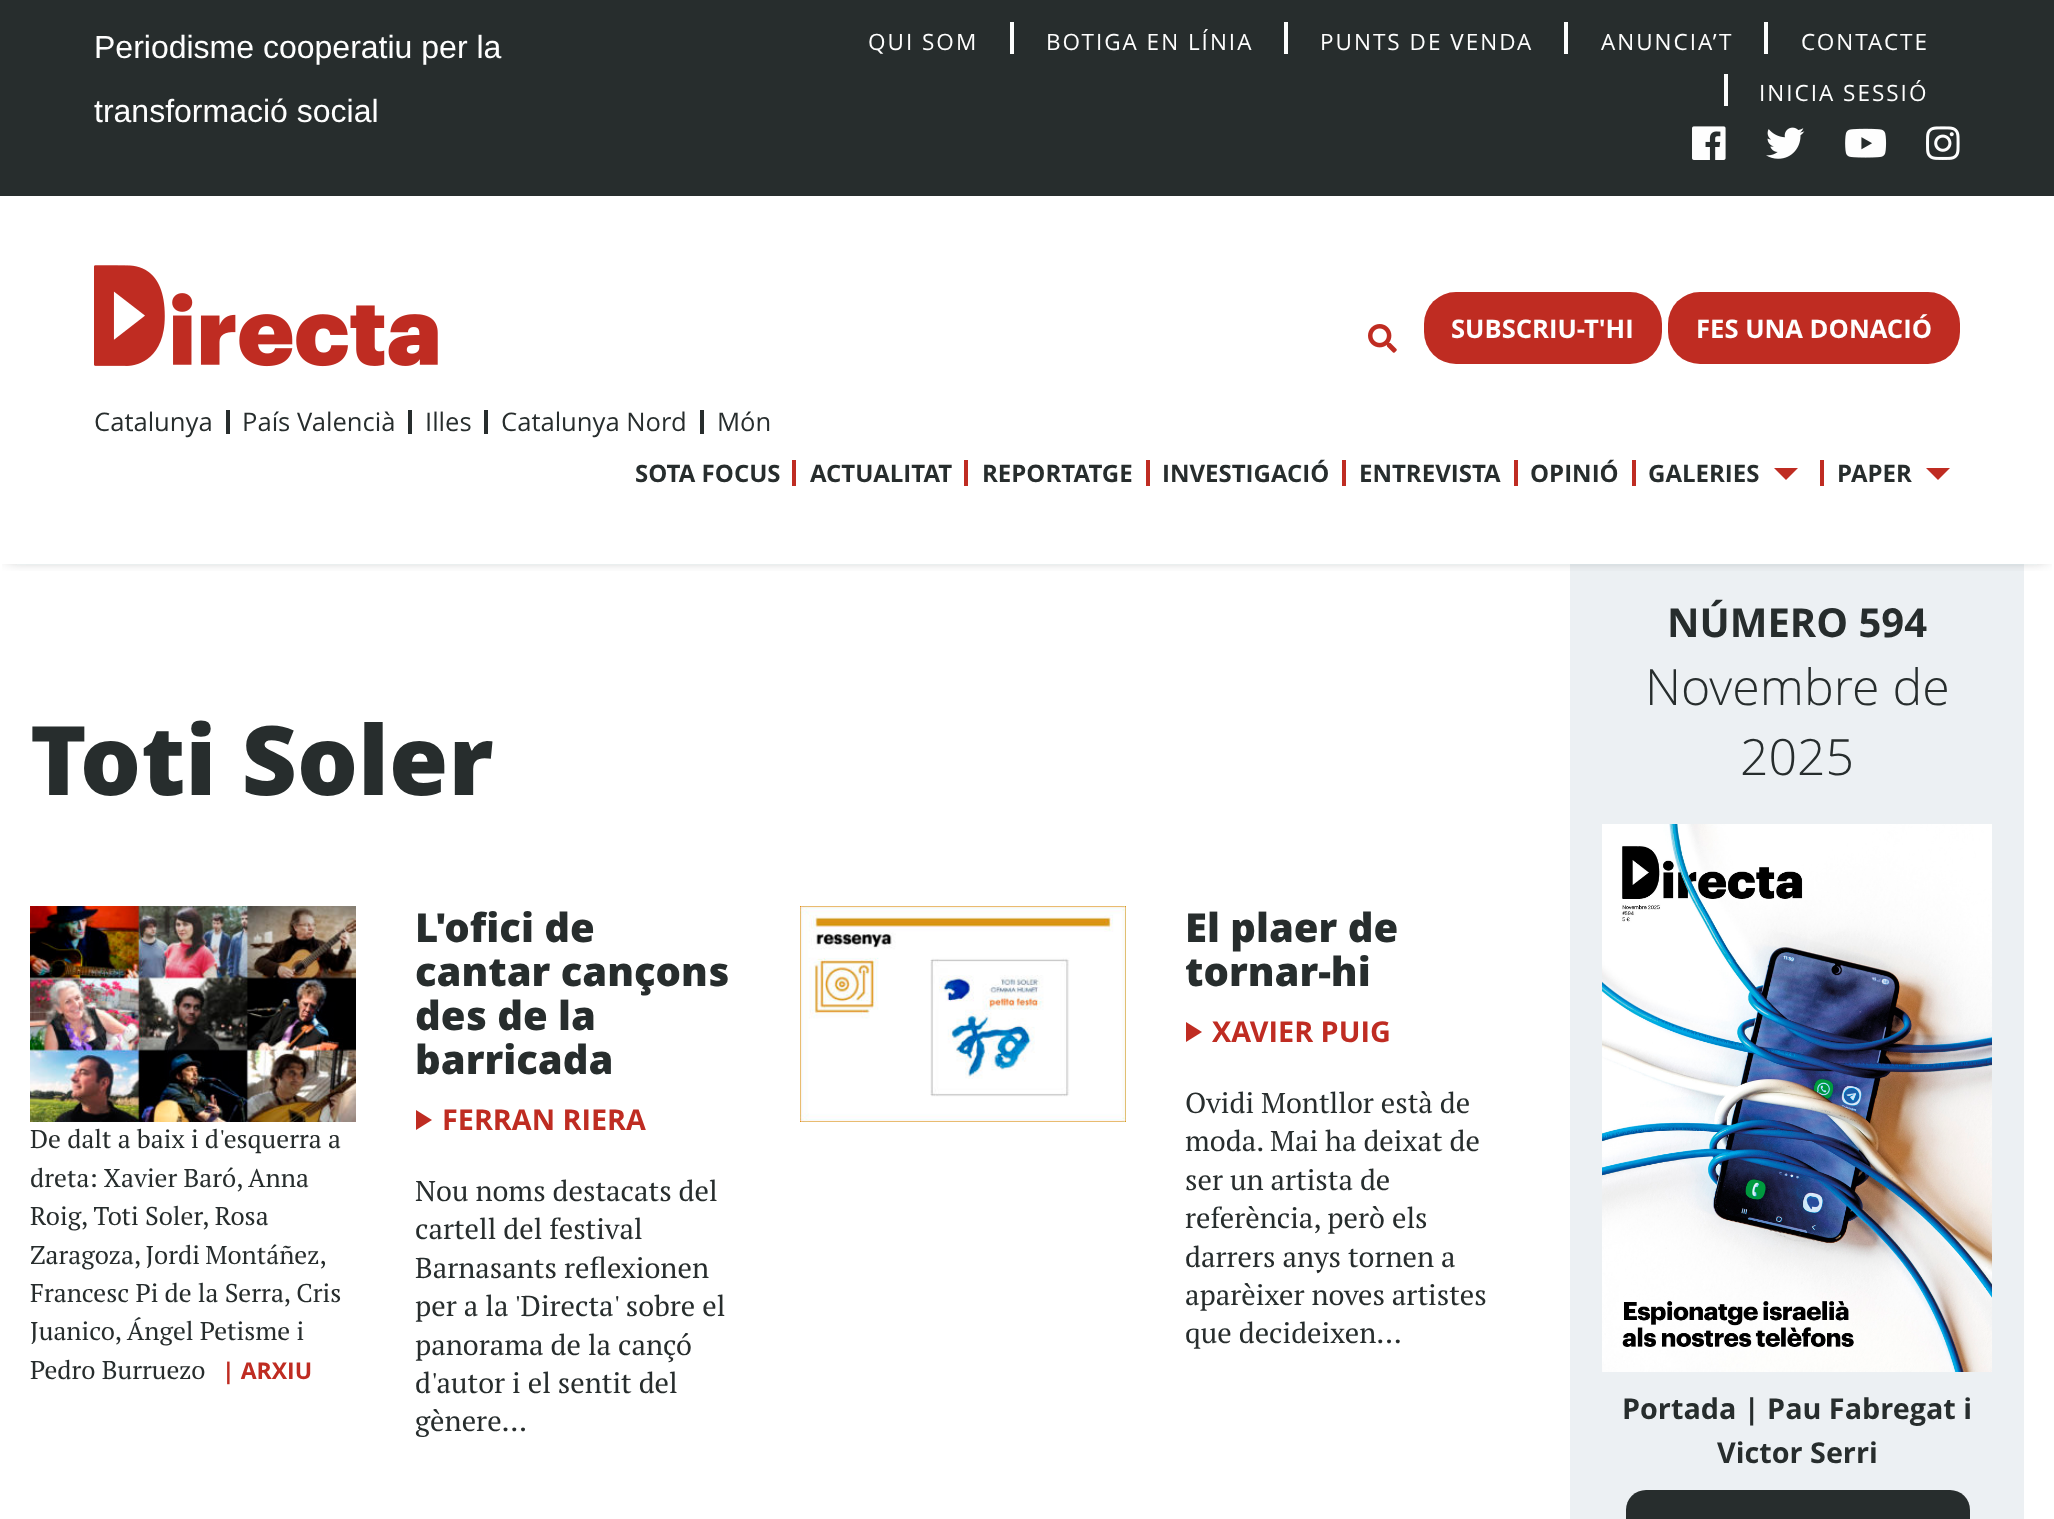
<svg xmlns="http://www.w3.org/2000/svg" width="2054" height="1519" viewBox="0 0 2054 1519">
  <defs>
    <clipPath id="clip1"><rect x="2" y="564" width="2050" height="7"/></clipPath>
    <filter id="blur1" x="-50%" y="-200%" width="200%" height="500%"><feGaussianBlur stdDeviation="8"/></filter>
  </defs>
  <rect width="100%" height="100%" fill="#ffffff"/>
  <rect x="1570" y="564" width="454" height="955" fill="#ecf0f3"/>
  <g clip-path="url(#clip1)">
    <rect x="8" y="204" width="2038" height="352" fill="#272d2d" fill-opacity="0.6" filter="url(#blur1)"/>
  </g>
  <rect x="0" y="0" width="2054" height="196" fill="#272d2d"/>
  <text x="94" y="58" font-family="Liberation Sans" font-size="32" fill="#fefefe">Periodisme cooperatiu per la</text>
  <text x="94" y="122" font-family="Liberation Sans" font-size="32" fill="#fefefe">transformació social</text>
  <text x="868" y="50" font-family="Open Sans" font-size="22.5" letter-spacing="2" fill="#fefefe">QUI SOM</text>
  <rect x="1010" y="22" width="4" height="32" fill="#fefefe"/>
  <text x="1046" y="50" font-family="Open Sans" font-size="22.5" letter-spacing="2" fill="#fefefe">BOTIGA EN LÍNIA</text>
  <rect x="1284" y="22" width="4" height="32" fill="#fefefe"/>
  <text x="1320" y="50" font-family="Open Sans" font-size="22.5" letter-spacing="2" fill="#fefefe">PUNTS DE VENDA</text>
  <rect x="1564" y="22" width="4" height="32" fill="#fefefe"/>
  <text x="1601" y="50" font-family="Open Sans" font-size="22.5" letter-spacing="2" fill="#fefefe">ANUNCIA’T</text>
  <rect x="1764" y="22" width="4" height="32" fill="#fefefe"/>
  <text x="1801" y="50" font-family="Open Sans" font-size="22.5" letter-spacing="2" fill="#fefefe">CONTACTE</text>
  <rect x="1724" y="74" width="4" height="32" fill="#fefefe"/>
  <text x="1759" y="101" font-family="Open Sans" font-size="22.5" letter-spacing="2" fill="#fefefe">INICIA SESSIÓ</text>
  <image x="1692" y="126" width="34" height="34" href="img1.png"/>
  <image x="1766" y="127" width="39" height="32" href="img2.png"/>
  <image x="1845" y="128" width="42" height="30" href="img3.png"/>
  <image x="1926" y="126" width="34" height="34" href="img4.png"/>
  <image x="94" y="265" width="344" height="102" href="img5.png"/>
  <image x="1368" y="324" width="29" height="29" href="img6.png"/>
  <rect x="1424" y="292" width="238" height="72" rx="32" fill="#bf2c22"/>
  <text x="1451" y="338" font-family="Open Sans" font-size="25.6" font-weight="bold" fill="#fefefe">SUBSCRIU-T'HI</text>
  <rect x="1668" y="292" width="292" height="72" rx="32" fill="#bf2c22"/>
  <text x="1696" y="338" font-family="Open Sans" font-size="25.6" font-weight="bold" fill="#fefefe">FES UNA DONACIÓ</text>
  <text x="94" y="431" font-family="Open Sans" font-size="25.6" fill="#272d2d">Catalunya</text>
  <rect x="226" y="410" width="4" height="24" fill="#272d2d"/>
  <text x="242" y="431" font-family="Open Sans" font-size="25.6" fill="#272d2d">País Valencià</text>
  <rect x="408" y="410" width="4" height="24" fill="#272d2d"/>
  <text x="425" y="431" font-family="Open Sans" font-size="25.6" fill="#272d2d">Illes</text>
  <rect x="484" y="410" width="4" height="24" fill="#272d2d"/>
  <text x="501" y="431" font-family="Open Sans" font-size="25.6" fill="#272d2d">Catalunya Nord</text>
  <rect x="700" y="410" width="4" height="24" fill="#272d2d"/>
  <text x="717" y="431" font-family="Open Sans" font-size="25.6" fill="#272d2d">Món</text>
  <text x="635" y="482" font-family="Open Sans" font-size="24" font-weight="bold" fill="#272d2d">SOTA FOCUS</text>
  <rect x="792" y="460" width="4" height="26" fill="#bf2c22"/>
  <text x="810" y="482" font-family="Open Sans" font-size="24" font-weight="bold" fill="#272d2d">ACTUALITAT</text>
  <rect x="964" y="460" width="4" height="26" fill="#bf2c22"/>
  <text x="982" y="482" font-family="Open Sans" font-size="24" font-weight="bold" fill="#272d2d">REPORTATGE</text>
  <rect x="1146" y="460" width="4" height="26" fill="#bf2c22"/>
  <text x="1162" y="482" font-family="Open Sans" font-size="24" font-weight="bold" fill="#272d2d">INVESTIGACIÓ</text>
  <rect x="1342" y="460" width="4" height="26" fill="#bf2c22"/>
  <text x="1359" y="482" font-family="Open Sans" font-size="24" font-weight="bold" fill="#272d2d">ENTREVISTA</text>
  <rect x="1514" y="460" width="4" height="26" fill="#bf2c22"/>
  <text x="1530" y="482" font-family="Open Sans" font-size="24" font-weight="bold" fill="#272d2d">OPINIÓ</text>
  <rect x="1632" y="460" width="4" height="26" fill="#bf2c22"/>
  <text x="1648" y="482" font-family="Open Sans" font-size="24" font-weight="bold" fill="#272d2d">GALERIES</text>
  <path d="M1774 468H1798L1786 480Z" fill="#bf2c22"/>
  <rect x="1820" y="460" width="4" height="26" fill="#bf2c22"/>
  <text x="1837" y="482" font-family="Open Sans" font-size="24" font-weight="bold" fill="#272d2d">PAPER</text>
  <path d="M1926 468H1950L1938 480Z" fill="#bf2c22"/>
  <text x="30" y="795" font-family="Open Sans" font-size="96" font-weight="800" fill="#272d2d">Toti Soler</text>
  <image x="30" y="906" width="326" height="216" href="img7.png"/>
  <text x="30" y="1148" font-family="PT Serif" font-size="25.6" fill="#272d2d">De dalt a baix i d'esquerra a</text>
  <text x="30" y="1187" font-family="PT Serif" font-size="25.6" fill="#272d2d">dreta: Xavier Baró, Anna</text>
  <text x="30" y="1225" font-family="PT Serif" font-size="25.6" fill="#272d2d">Roig, Toti Soler, Rosa</text>
  <text x="30" y="1264" word-spacing="-1" font-family="PT Serif" font-size="25.6" fill="#272d2d">Zaragoza, Jordi Montáñez,</text>
  <text x="30" y="1302" font-family="PT Serif" font-size="25.6" fill="#272d2d">Francesc Pi de la Serra, Cris</text>
  <text x="30" y="1340" font-family="PT Serif" font-size="25.6" fill="#272d2d">Juanico, Ángel Petisme i</text>
  <text x="30" y="1379" font-family="PT Serif" font-size="25.6" fill="#272d2d">Pedro Burruezo</text>
  <text x="222" y="1379" font-family="Open Sans" font-size="23" font-weight="bold" fill="#bf2c22">| ARXIU</text>
  <text x="415" y="942" font-family="Open Sans" font-size="40" font-weight="800" fill="#272d2d">L'ofici de</text>
  <text x="415" y="986" font-family="Open Sans" font-size="40" font-weight="800" fill="#272d2d">cantar cançons</text>
  <text x="415" y="1030" font-family="Open Sans" font-size="40" font-weight="800" fill="#272d2d">des de la</text>
  <text x="415" y="1074" font-family="Open Sans" font-size="40" font-weight="800" fill="#272d2d">barricada</text>
  <path d="M416 1130V1110L432 1120Z" fill="#bf2c22"/>
  <text x="442" y="1130" font-family="Open Sans" font-size="28.75" font-weight="bold" fill="#bf2c22">FERRAN RIERA</text>
  <text x="415" y="1201" font-family="PT Serif" font-size="28.75" fill="#272d2d">Nou noms destacats del</text>
  <text x="415" y="1239" font-family="PT Serif" font-size="28.75" fill="#272d2d">cartell del festival</text>
  <text x="415" y="1278" font-family="PT Serif" font-size="28.75" fill="#272d2d">Barnasants reflexionen</text>
  <text x="415" y="1316" font-family="PT Serif" font-size="28.75" fill="#272d2d">per a la 'Directa' sobre el</text>
  <text x="415" y="1355" font-family="PT Serif" font-size="28.75" fill="#272d2d">panorama de la cançó</text>
  <text x="415" y="1393" font-family="PT Serif" font-size="28.75" fill="#272d2d">d'autor i el sentit del</text>
  <text x="415" y="1431" font-family="PT Serif" font-size="28.75" fill="#272d2d">gènere...</text>
  <image x="800" y="906" width="326" height="216" href="img8.png"/>
  <text x="1185" y="942" font-family="Open Sans" font-size="40" font-weight="800" fill="#272d2d">El plaer de</text>
  <text x="1185" y="986" font-family="Open Sans" font-size="40" font-weight="800" fill="#272d2d">tornar-hi</text>
  <path d="M1186 1042V1022L1202 1032Z" fill="#bf2c22"/>
  <text x="1212" y="1042" font-family="Open Sans" font-size="28.75" font-weight="bold" fill="#bf2c22">XAVIER PUIG</text>
  <text x="1185" y="1113" font-family="PT Serif" font-size="28.75" fill="#272d2d">Ovidi Montllor està de</text>
  <text x="1185" y="1151" font-family="PT Serif" font-size="28.75" fill="#272d2d">moda. Mai ha deixat de</text>
  <text x="1185" y="1190" font-family="PT Serif" font-size="28.75" fill="#272d2d">ser un artista de</text>
  <text x="1185" y="1228" font-family="PT Serif" font-size="28.75" fill="#272d2d">referència, però els</text>
  <text x="1185" y="1267" font-family="PT Serif" font-size="28.75" fill="#272d2d">darrers anys tornen a</text>
  <text x="1185" y="1305" font-family="PT Serif" font-size="28.75" fill="#272d2d">aparèixer noves artistes</text>
  <text x="1185" y="1343" font-family="PT Serif" font-size="28.75" fill="#272d2d">que decideixen...</text>
  <text x="1667" y="637" font-family="Open Sans" font-size="40" font-weight="bold" fill="#272d2d">NÚMERO 594</text>
  <text x="1645" y="705" font-family="Open Sans" font-size="50" font-weight="300" fill="#272d2d">Novembre de</text>
  <text x="1740" y="775" font-family="Open Sans" font-size="50" font-weight="300" fill="#272d2d">2025</text>
  <image x="1602" y="824" width="390" height="548" href="img9.png"/>
  <text x="1622" y="1419" font-family="Open Sans" font-size="28.75" font-weight="bold" fill="#272d2d">Portada | Pau Fabregat i</text>
  <text x="1717" y="1463" font-family="Open Sans" font-size="28.75" font-weight="bold" fill="#272d2d">Victor Serri</text>
  <rect x="1626" y="1490" width="344" height="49" rx="20" fill="#272d2d"/>
</svg>
